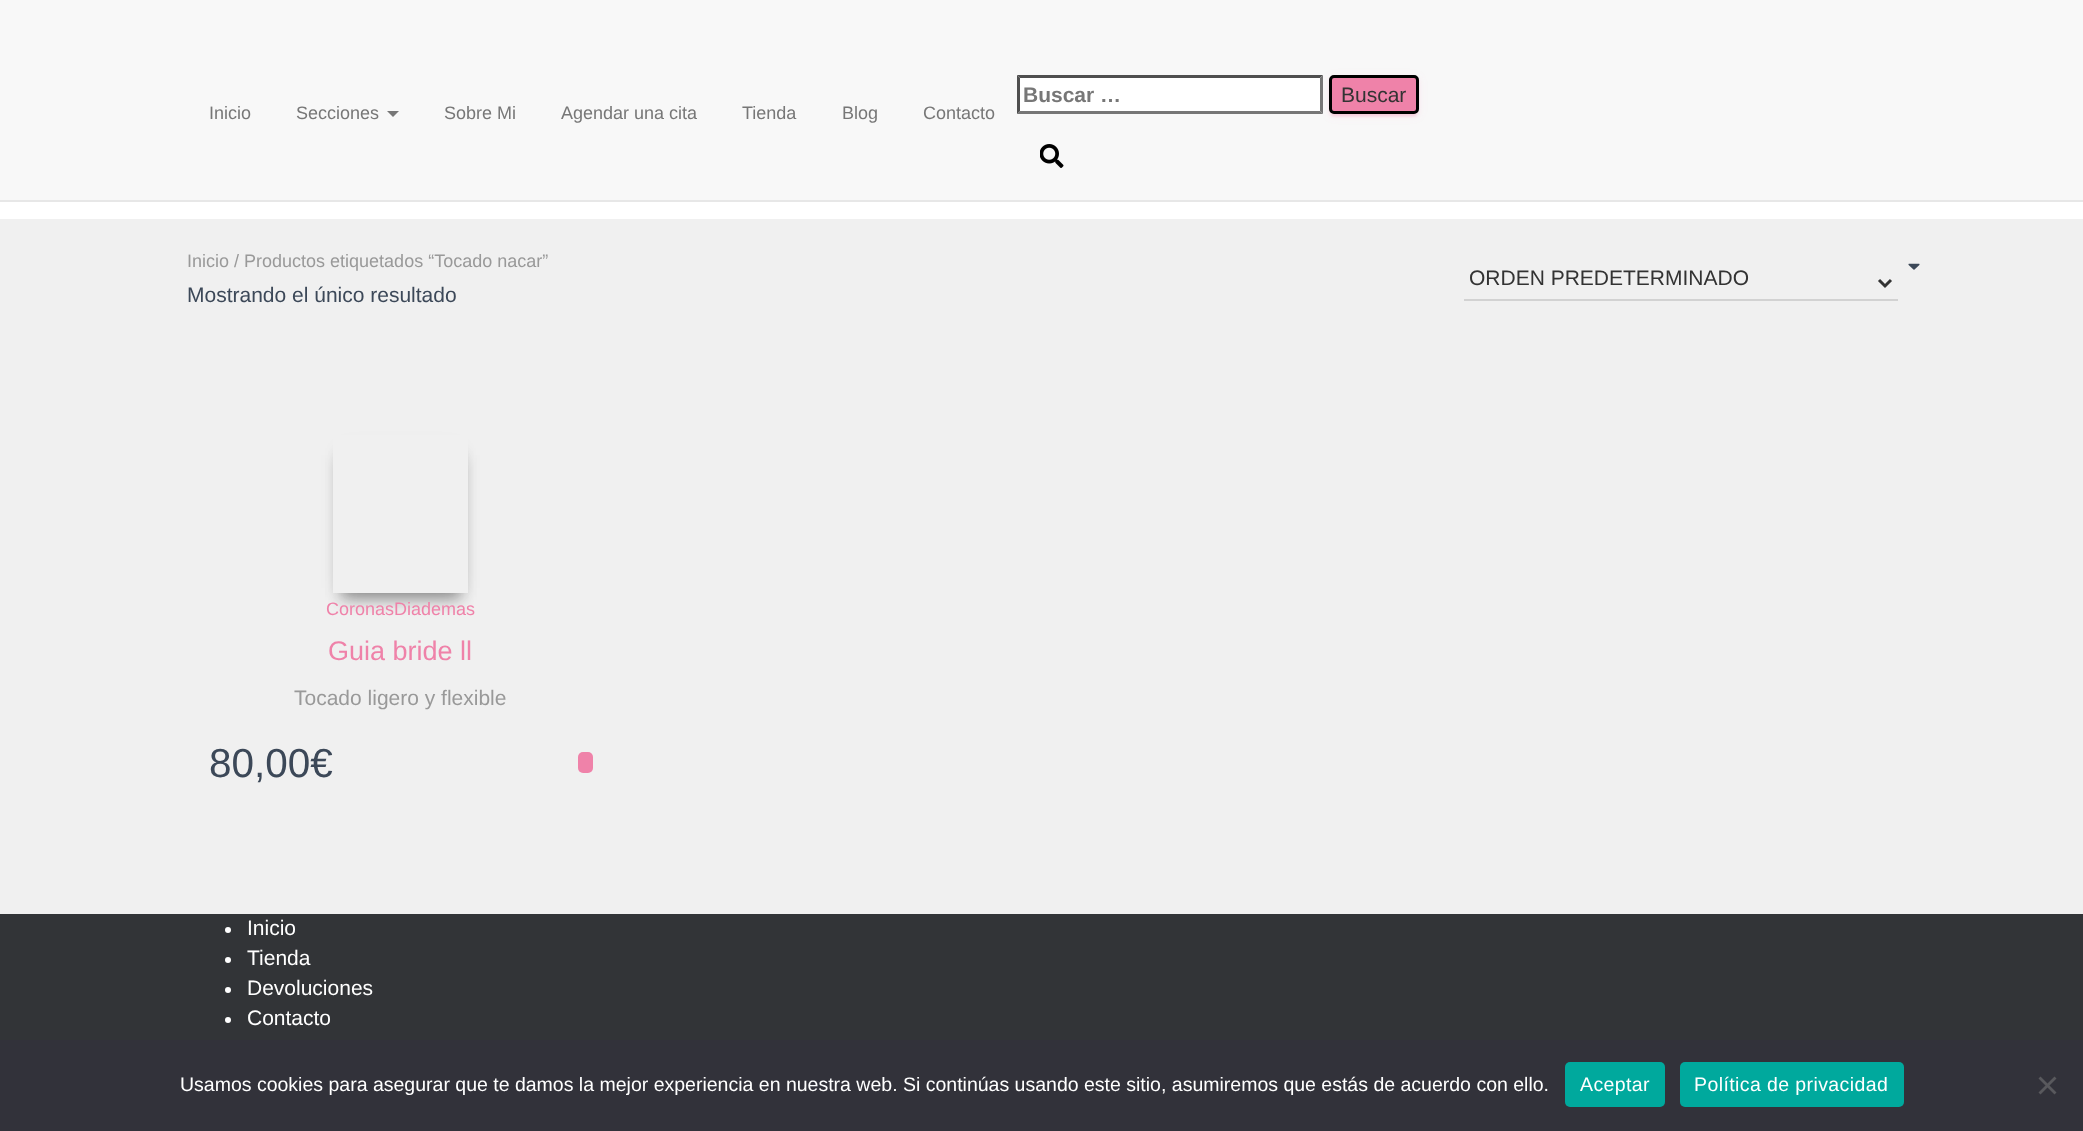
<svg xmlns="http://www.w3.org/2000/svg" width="2083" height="1131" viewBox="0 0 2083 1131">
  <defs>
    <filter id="blur1" x="-50%" y="-200%" width="200%" height="500%"><feGaussianBlur stdDeviation="4"/></filter>
    <filter id="blur2" x="-50%" y="-200%" width="200%" height="500%"><feGaussianBlur stdDeviation="1"/></filter>
    <filter id="blur3" x="-50%" y="-200%" width="200%" height="500%"><feGaussianBlur stdDeviation="1.5"/></filter>
    <clipPath id="clip1"><path d="M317 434H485V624H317ZM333 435H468V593H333Z" clip-rule="evenodd"/></clipPath>
    <filter id="blur4" x="-50%" y="-200%" width="200%" height="500%"><feGaussianBlur stdDeviation="7.5"/></filter>
    <clipPath id="clip2"><path d="M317 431H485V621H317ZM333 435H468V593H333Z" clip-rule="evenodd"/></clipPath>
    <clipPath id="clip3"><path d="M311 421H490V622H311ZM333 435H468V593H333Z" clip-rule="evenodd"/></clipPath>
    <filter id="blur5" x="-50%" y="-200%" width="200%" height="500%"><feGaussianBlur stdDeviation="11"/></filter>
  </defs>
  <rect width="100%" height="100%" fill="#ffffff"/>
  <rect x="0" y="0" width="2083" height="200" fill="#f8f8f8"/>
  <rect x="0" y="200" width="2083" height="2" fill="#e7e7e7"/>
  <rect x="1017" y="75" width="306" height="39" fill="#ffffff"/>
  <path d="M1017 75H1323L1320 78H1020Z" fill="#4f4f4f"/>
  <path d="M1323 75V114L1320 111V78Z" fill="#767676"/>
  <path d="M1323 114H1017L1020 111H1320Z" fill="#767676"/>
  <path d="M1017 114V75L1020 78V111Z" fill="#4f4f4f"/>
  <text x="1023" y="102" font-family="Liberation Sans" font-size="21" font-weight="bold" fill="#777777">Buscar …</text>
  <rect x="1329" y="77" width="90" height="39" rx="5" fill="#ef82a9" fill-opacity="0.12" filter="url(#blur1)"/>
  <rect x="1332" y="83" width="84" height="33" rx="1.5" fill="#ef82a9" fill-opacity="0.2" filter="url(#blur2)"/>
  <rect x="1329" y="78" width="90" height="39" rx="5" fill="#ef82a9" fill-opacity="0.14" filter="url(#blur3)"/>
  <rect x="1330.5" y="76.5" width="87" height="36" rx="3.5" fill="#ef82a9" stroke="#000000" stroke-width="3"/>
  <text x="1341" y="102" font-family="Liberation Sans" font-size="21" fill="#333333">Buscar</text>
  <image x="1040" y="144" width="24" height="24" href="img1.png"/>
  <text x="209" y="119" font-family="Liberation Sans" font-size="18" fill="#777777">Inicio</text>
  <text x="296" y="119" font-family="Liberation Sans" font-size="18" fill="#777777">Secciones</text>
  <path d="M387 111H399L393 117Z" fill="#777777"/>
  <text x="444" y="119" font-family="Liberation Sans" font-size="18" fill="#777777">Sobre Mi</text>
  <text x="561" y="119" font-family="Liberation Sans" font-size="18" fill="#777777">Agendar una cita</text>
  <text x="742" y="119" font-family="Liberation Sans" font-size="18" fill="#777777">Tienda</text>
  <text x="842" y="119" font-family="Liberation Sans" font-size="18" fill="#777777">Blog</text>
  <text x="923" y="119" font-family="Liberation Sans" font-size="18" fill="#777777">Contacto</text>
  <rect x="0" y="219" width="2083" height="695" fill="#f0f0f0"/>
  <text x="187" y="267" font-family="Liberation Sans" font-size="18" fill="#999999">Inicio / Productos etiquetados “Tocado nacar”</text>
  <text x="187" y="302" font-family="Liberation Sans" font-size="21" fill="#3c4858">Mostrando el único resultado</text>
  <image x="1908" y="263" width="12" height="7" href="img2.png"/>
  <rect x="1464" y="299" width="434" height="2" fill="#d2d2d2"/>
  <path d="M1879 280L1885 286L1891 280" fill="none" stroke="#333333" stroke-width="3"/>
  <text x="1469" y="285" font-family="Liberation Sans" font-size="21" fill="#333333">ORDEN PREDETERMINADO</text>
  <g clip-path="url(#clip1)">
    <rect x="341" y="458" width="120" height="142" fill="#000000" fill-opacity="0.2" filter="url(#blur4)"/>
  </g>
  <g clip-path="url(#clip2)">
    <rect x="341" y="455" width="120" height="142" fill="#000000" fill-opacity="0.2" filter="url(#blur4)"/>
  </g>
  <g clip-path="url(#clip3)">
    <rect x="345" y="455" width="111" height="133" fill="#000000" fill-opacity="0.24" filter="url(#blur5)"/>
  </g>
  <text x="326" y="615" font-family="Liberation Sans" font-size="18" fill="#ef82a9">CoronasDiademas</text>
  <text x="328" y="660" font-family="Liberation Sans" font-size="27" fill="#ef82a9">Guia bride ll</text>
  <text x="294" y="705" font-family="Liberation Sans" font-size="21" fill="#999999">Tocado ligero y flexible</text>
  <text x="209" y="777" font-family="Liberation Sans" font-size="40.5" fill="#3c4858">80,00€</text>
  <rect x="578" y="752" width="15" height="21" rx="5" fill="#ef82a9"/>
  <rect x="0" y="914" width="2083" height="126" fill="#323437"/>
  <circle cx="228" cy="930" r="3" fill="#ffffff"/>
  <text x="247" y="935" font-family="Liberation Sans" font-size="21" fill="#ffffff">Inicio</text>
  <circle cx="228" cy="960" r="3" fill="#ffffff"/>
  <text x="247" y="965" font-family="Liberation Sans" font-size="21" fill="#ffffff">Tienda</text>
  <circle cx="228" cy="990" r="3" fill="#ffffff"/>
  <text x="247" y="995" font-family="Liberation Sans" font-size="21" fill="#ffffff">Devoluciones</text>
  <circle cx="228" cy="1020" r="3" fill="#ffffff"/>
  <text x="247" y="1025" font-family="Liberation Sans" font-size="21" fill="#ffffff">Contacto</text>
  <rect x="0" y="1040" width="2083" height="91" fill="#32323a"/>
  <text x="180" y="1091" font-family="Liberation Sans" font-size="19.5" fill="#ffffff">Usamos cookies para asegurar que te damos la mejor experiencia en nuestra web. Si continúas usando este sitio, asumiremos que estás de acuerdo con ello.</text>
  <rect x="1565" y="1062" width="100" height="45" rx="5" fill="#00a99d"/>
  <text x="1580" y="1091" font-family="Liberation Sans" font-size="19.5" letter-spacing="0.4" fill="#ffffff">Aceptar</text>
  <rect x="1680" y="1062" width="224" height="45" rx="5" fill="#00a99d"/>
  <text x="1694" y="1091" font-family="Liberation Sans" font-size="19.5" letter-spacing="0.4" fill="#ffffff">Política de privacidad</text>
  <path d="M2054.5 1076.5L2056.5 1078.5L2040.5 1094.5L2038.5 1092.5Z" fill="#59595d"/>
  <path d="M2038.5 1078.5L2040.5 1076.5L2056.5 1092.5L2054.5 1094.5Z" fill="#59595d"/>
</svg>
